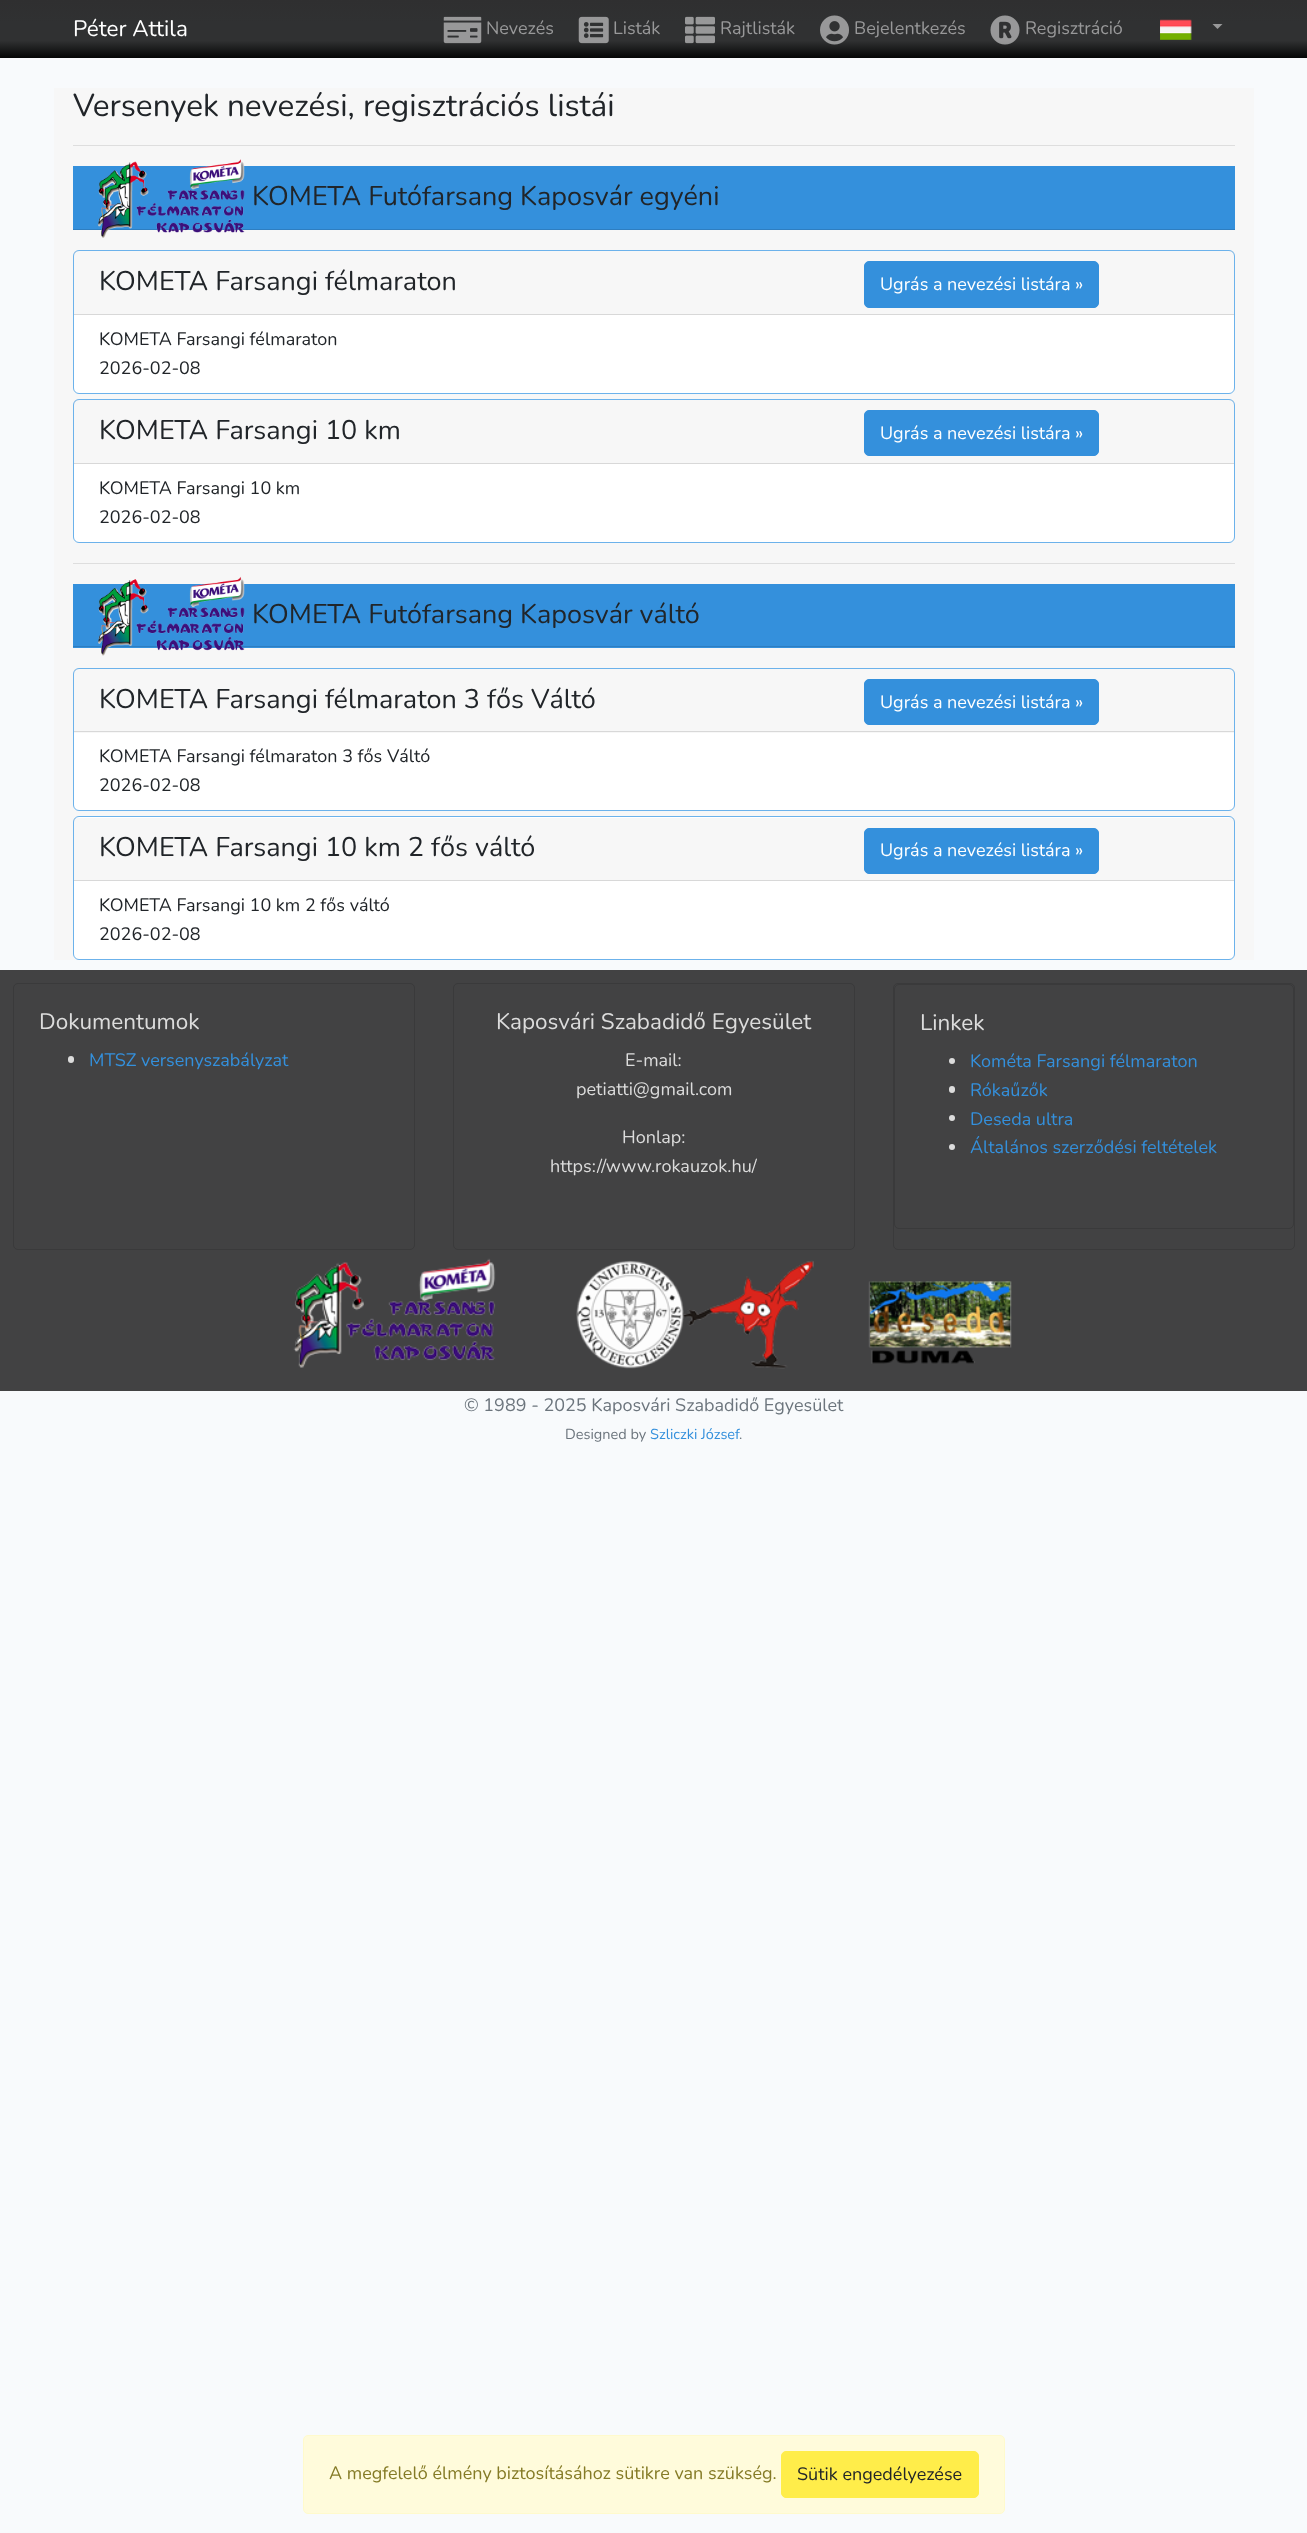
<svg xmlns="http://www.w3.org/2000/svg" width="1307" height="2533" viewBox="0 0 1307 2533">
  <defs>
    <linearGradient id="g1" gradientUnits="userSpaceOnUse" x1="654" y1="0" x2="654" y2="58"><stop offset="0" stop-color="#2f2f30"/><stop offset="0.4" stop-color="#303132"/><stop offset="0.7" stop-color="#303132"/><stop offset="1" stop-color="#050606"/></linearGradient>
  </defs>
  <rect width="100%" height="100%" fill="#f8fafc"/>
  <rect x="0" y="0" width="1307" height="58" fill="url(#g1)"/>
  <text x="73" y="36" font-family="Nunito" font-size="22.5" font-weight="200" fill="#ffffff">Péter Attila</text>
  <image x="443" y="16" width="39" height="28" href="img1.png"/>
  <text x="486" y="34" font-family="Nunito" font-size="18" font-weight="200" fill="#989899">Nevezés</text>
  <image x="578" y="16" width="31" height="28" href="img2.png"/>
  <text x="613" y="34" font-family="Nunito" font-size="18" font-weight="200" fill="#989899">Listák</text>
  <image x="685" y="16" width="30" height="28" href="img3.png"/>
  <text x="720" y="34" font-family="Nunito" font-size="18" font-weight="200" fill="#989899">Rajtlisták</text>
  <image x="820" y="15" width="29" height="30" href="img4.png"/>
  <text x="854" y="34" font-family="Nunito" font-size="18" font-weight="200" fill="#989899">Bejelentkezés</text>
  <image x="990" y="15" width="30" height="30" href="img5.png"/>
  <text x="1025" y="34" font-family="Nunito" font-size="18" font-weight="200" fill="#989899">Regisztráció</text>
  <image x="1160" y="19" width="32" height="21" href="img6.png"/>
  <path d="M1212.5 24H1222.5L1217.5 29Z" fill="#989899"/>
  <rect x="54" y="88" width="1200" height="872" fill="#f7f7f7"/>
  <text x="73" y="116" font-family="Nunito" font-size="31.5" font-weight="200" fill="#212529">Versenyek nevezési, regisztrációs listái</text>
  <rect x="73" y="145" width="1162" height="1" fill="#dedede"/>
  <rect x="73" y="166" width="1162" height="63" fill="#3490dc"/>
  <rect x="73" y="229" width="1162" height="1" fill="#2e7ec1"/>
  <image x="97" y="159" width="148" height="79" href="img7.png"/>
  <text x="252" y="205" font-family="Nunito" font-size="27" font-weight="200" fill="#212529">KOMETA Futófarsang Kaposvár egyéni</text>
  <rect x="73.5" y="250.5" width="1161" height="143" rx="5.5" fill="#ffffff" stroke="#6cb2eb"/>
  <rect x="74" y="251" width="1160" height="63" fill="#000000" fill-opacity="0.03"/>
  <rect x="74" y="314" width="1160" height="1" fill="#d8d8d8"/>
  <text x="99" y="290" font-family="Nunito" font-size="27" font-weight="200" fill="#212529">KOMETA Farsangi félmaraton</text>
  <rect x="864.5" y="261.5" width="234" height="46" rx="4.5" fill="#3490dc" stroke="#3490dc"/>
  <text x="880" y="290" font-family="Nunito" font-size="18" font-weight="200" fill="#ffffff">Ugrás a nevezési listára »</text>
  <text x="99" y="345" font-family="Nunito" font-size="18" font-weight="200" fill="#212529">KOMETA Farsangi félmaraton</text>
  <text x="99" y="374" font-family="Nunito" font-size="18" font-weight="200" fill="#212529">2026-02-08</text>
  <rect x="73.5" y="399.5" width="1161" height="143" rx="5.5" fill="#ffffff" stroke="#6cb2eb"/>
  <rect x="74" y="400" width="1160" height="63" fill="#000000" fill-opacity="0.03"/>
  <rect x="74" y="463" width="1160" height="1" fill="#d8d8d8"/>
  <text x="99" y="439" font-family="Nunito" font-size="27" font-weight="200" fill="#212529">KOMETA Farsangi 10 km</text>
  <rect x="864.5" y="410.5" width="234" height="45" rx="4.5" fill="#3490dc" stroke="#3490dc"/>
  <text x="880" y="439" font-family="Nunito" font-size="18" font-weight="200" fill="#ffffff">Ugrás a nevezési listára »</text>
  <text x="99" y="494" font-family="Nunito" font-size="18" font-weight="200" fill="#212529">KOMETA Farsangi 10 km</text>
  <text x="99" y="523" font-family="Nunito" font-size="18" font-weight="200" fill="#212529">2026-02-08</text>
  <rect x="73" y="563" width="1162" height="1" fill="#dedede"/>
  <rect x="73" y="584" width="1162" height="64" fill="#3490dc"/>
  <rect x="73" y="646" width="1162" height="1" fill="#2e7ec1"/>
  <image x="97" y="576" width="148" height="80" href="img8.png"/>
  <text x="252" y="623" font-family="Nunito" font-size="27" font-weight="200" fill="#212529">KOMETA Futófarsang Kaposvár váltó</text>
  <rect x="73.5" y="668.5" width="1161" height="142" rx="5.5" fill="#ffffff" stroke="#6cb2eb"/>
  <rect x="74" y="669" width="1160" height="64" fill="#000000" fill-opacity="0.03"/>
  <rect x="74" y="731" width="1160" height="1" fill="#d8d8d8"/>
  <text x="99" y="708" font-family="Nunito" font-size="27" font-weight="200" fill="#212529">KOMETA Farsangi félmaraton 3 fős Váltó</text>
  <rect x="864.5" y="679.5" width="234" height="45" rx="4.5" fill="#3490dc" stroke="#3490dc"/>
  <text x="880" y="708" font-family="Nunito" font-size="18" font-weight="200" fill="#ffffff">Ugrás a nevezési listára »</text>
  <text x="99" y="762" font-family="Nunito" font-size="18" font-weight="200" fill="#212529">KOMETA Farsangi félmaraton 3 fős Váltó</text>
  <text x="99" y="791" font-family="Nunito" font-size="18" font-weight="200" fill="#212529">2026-02-08</text>
  <rect x="73.5" y="816.5" width="1161" height="143" rx="5.5" fill="#ffffff" stroke="#6cb2eb"/>
  <rect x="74" y="818" width="1160" height="62" fill="#000000" fill-opacity="0.03"/>
  <rect x="74" y="880" width="1160" height="1" fill="#d8d8d8"/>
  <text x="99" y="856" font-family="Nunito" font-size="27" font-weight="200" fill="#212529">KOMETA Farsangi 10 km 2 fős váltó</text>
  <rect x="864.5" y="828.5" width="234" height="45" rx="4.5" fill="#3490dc" stroke="#3490dc"/>
  <text x="880" y="856" font-family="Nunito" font-size="18" font-weight="200" fill="#ffffff">Ugrás a nevezési listára »</text>
  <text x="99" y="911" font-family="Nunito" font-size="18" font-weight="200" fill="#212529">KOMETA Farsangi 10 km 2 fős váltó</text>
  <text x="99" y="940" font-family="Nunito" font-size="18" font-weight="200" fill="#212529">2026-02-08</text>
  <rect x="0" y="970" width="1307" height="421" fill="#424243"/>
  <rect x="13.5" y="983.5" width="401" height="266" rx="4.5" fill="none" stroke="#3a3a3b"/>
  <text x="39" y="1029" font-family="Nunito" font-size="22.5" font-weight="200" fill="#dcdcdc">Dokumentumok</text>
  <rect x="68" y="1056" width="6" height="7" rx="3" fill="#dcdcdc"/>
  <text x="89" y="1066" font-family="Nunito" font-size="18" font-weight="200" fill="#3490dc">MTSZ versenyszabályzat</text>
  <rect x="453.5" y="983.5" width="401" height="266" rx="4.5" fill="none" stroke="#3a3a3b"/>
  <text x="496" y="1029" font-family="Nunito" font-size="22.5" font-weight="200" fill="#dcdcdc">Kaposvári Szabadidő Egyesület</text>
  <text x="625" y="1066" font-family="Nunito" font-size="18" font-weight="200" fill="#dcdcdc">E-mail:</text>
  <text x="576" y="1095" font-family="Nunito" font-size="18" font-weight="200" fill="#dcdcdc">petiatti@gmail.com</text>
  <text x="622" y="1143" font-family="Nunito" font-size="18" font-weight="200" fill="#dcdcdc">Honlap:</text>
  <text x="550" y="1172" font-family="Nunito" font-size="18" font-weight="200" fill="#dcdcdc">https://www.rokauzok.hu/</text>
  <rect x="893.5" y="983.5" width="401" height="266" rx="4.5" fill="none" stroke="#3a3a3b"/>
  <rect x="894.5" y="984.5" width="399" height="244" rx="4.5" fill="none" stroke="#3a3a3b"/>
  <text x="920" y="1030" font-family="Nunito" font-size="22.5" font-weight="200" fill="#dcdcdc">Linkek</text>
  <circle cx="952" cy="1061" r="3" fill="#dcdcdc"/>
  <text x="970" y="1067" font-family="Nunito" font-size="18" font-weight="200" fill="#3490dc">Kométa Farsangi félmaraton</text>
  <rect x="949" y="1086" width="6" height="7" rx="3" fill="#dcdcdc"/>
  <text x="970" y="1096" font-family="Nunito" font-size="18" font-weight="200" fill="#3490dc">Rókaűzők</text>
  <circle cx="952" cy="1118" r="3" fill="#dcdcdc"/>
  <text x="970" y="1125" font-family="Nunito" font-size="18" font-weight="200" fill="#3490dc">Deseda ultra</text>
  <circle cx="952" cy="1147" r="3" fill="#dcdcdc"/>
  <text x="970" y="1153" font-family="Nunito" font-size="18" font-weight="200" fill="#3490dc">Általános szerződési feltételek</text>
  <image x="293" y="1258" width="719" height="111" href="img9.png"/>
  <text x="464" y="1411" font-family="Nunito" font-size="18" font-weight="200" fill="#6c757d">© 1989 - 2025 Kaposvári Szabadidő Egyesület</text>
  <text x="565" y="1439" font-family="Nunito" font-size="14.5" font-weight="200" fill="#6c757d">Designed by</text>
  <text x="650" y="1439" font-family="Nunito" font-size="14.5" font-weight="200" fill="#3490dc">Szliczki József</text>
  <text x="739" y="1439" font-family="Nunito" font-size="14.5" font-weight="200" fill="#6c757d">.</text>
  <rect x="303.5" y="2435.5" width="701" height="78" rx="4.5" fill="#fffbdb" stroke="#fffacc"/>
  <text x="329" y="2479" font-family="Nunito" font-size="18" font-weight="200" fill="#857b26">A megfelelő élmény biztosításához sütikre van szükség.</text>
  <rect x="781.5" y="2451.5" width="197" height="46" rx="4.5" fill="#ffed4a" stroke="#ffed4a"/>
  <text x="797" y="2480" font-family="Nunito" font-size="18" font-weight="200" fill="#212529">Sütik engedélyezése</text>
</svg>
